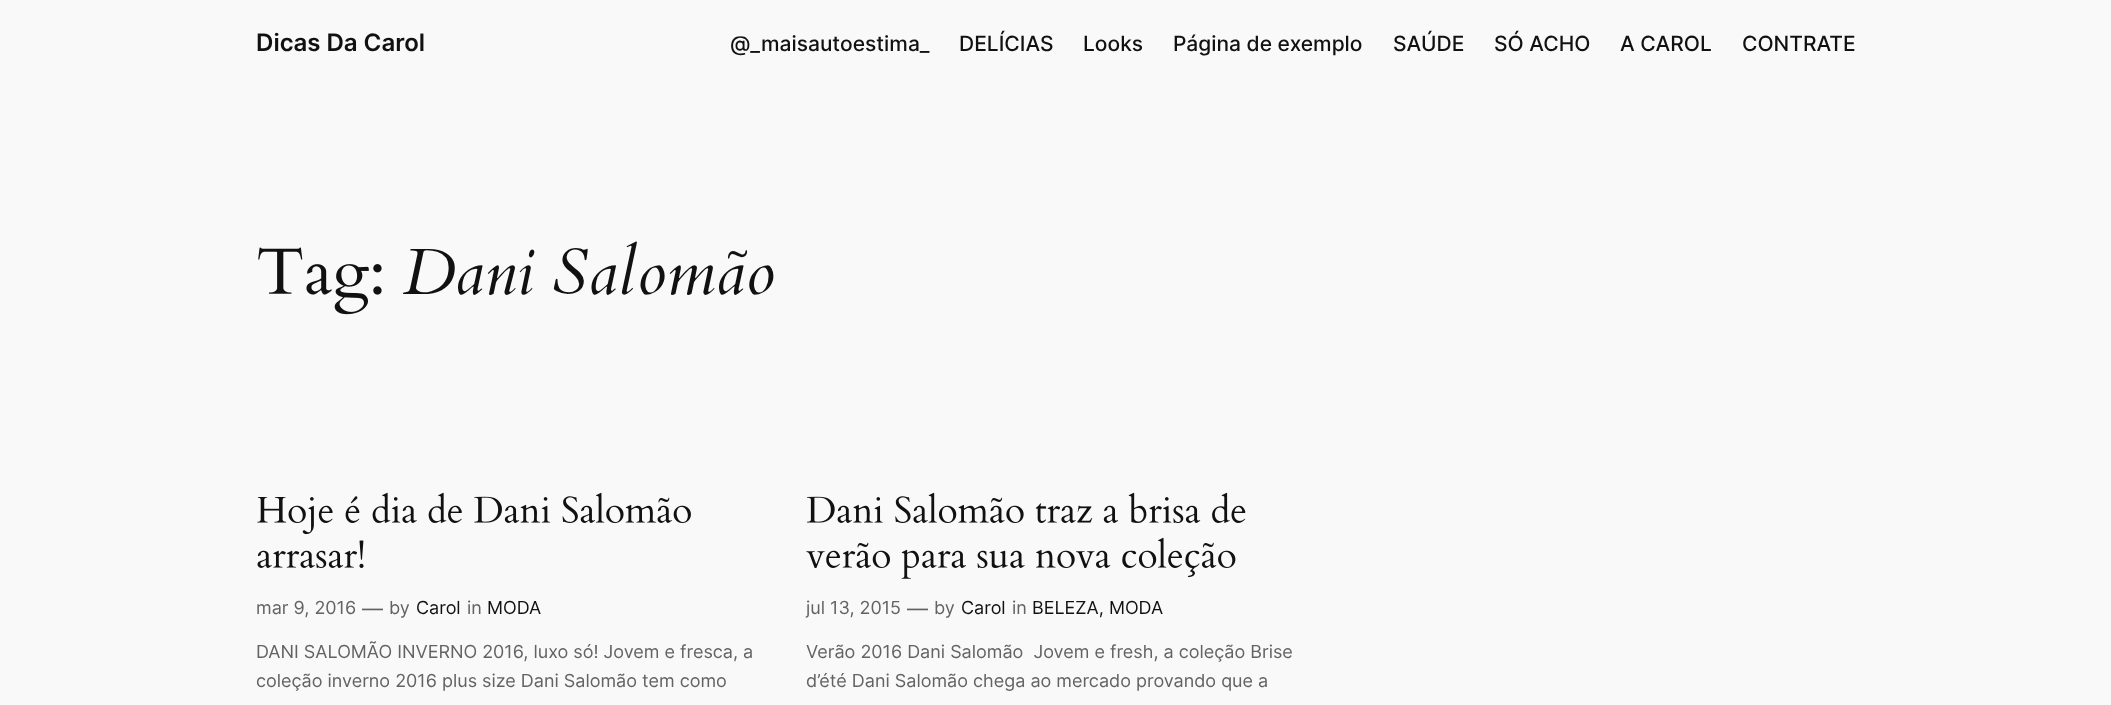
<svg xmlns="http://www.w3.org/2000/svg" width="2111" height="705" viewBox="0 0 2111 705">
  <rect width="100%" height="100%" fill="#f9f9f9"/>
  <text x="256" y="51" font-family="Inter" font-size="24" font-weight="600" fill="#111111">Dicas Da Carol</text>
  <text x="730" y="51" font-family="Inter" font-size="21" font-weight="500" fill="#111111">@_maisautoestima_</text>
  <text x="959" y="51" font-family="Inter" font-size="21" font-weight="500" fill="#111111">DELÍCIAS</text>
  <text x="1083" y="51" font-family="Inter" font-size="21" font-weight="500" fill="#111111">Looks</text>
  <text x="1173" y="51" font-family="Inter" font-size="21" font-weight="500" fill="#111111">Página de exemplo</text>
  <text x="1393" y="51" font-family="Inter" font-size="21" font-weight="500" fill="#111111">SAÚDE</text>
  <text x="1494" y="51" font-family="Inter" font-size="21" font-weight="500" fill="#111111">SÓ ACHO</text>
  <text x="1620" y="51" font-family="Inter" font-size="21" font-weight="500" fill="#111111">A CAROL</text>
  <text x="1742" y="51" font-family="Inter" font-size="21" font-weight="500" fill="#111111">CONTRATE</text>
  <image x="258" y="247" width="124" height="68" href="img1.png"/>
  <text x="403" y="294" font-family="Cardo" font-size="65.5" font-style="italic" fill="#111111">Dani Salomão</text>
  <image x="257" y="492" width="434" height="43" href="img2.png"/>
  <image x="257" y="540" width="107" height="28" href="img3.png"/>
  <text x="256" y="614" font-family="Inter" font-size="18" fill="#636363">mar 9, 2016</text>
  <text x="362" y="616" font-family="Inter" font-size="21" fill="#636363">—</text>
  <text x="389" y="614" font-family="Inter" font-size="18" fill="#636363">by</text>
  <text x="416" y="614" font-family="Inter" font-size="18" fill="#111111">Carol</text>
  <text x="467" y="614" font-family="Inter" font-size="18" fill="#636363">in</text>
  <text x="487" y="614" font-family="Inter" font-size="18" fill="#111111">MODA</text>
  <text x="256" y="658" font-family="Inter" font-size="18" fill="#636363">DANI SALOMÃO INVERNO 2016, luxo só! Jovem e fresca, a</text>
  <text x="256" y="687" font-family="Inter" font-size="18" fill="#636363">coleção inverno 2016 plus size Dani Salomão tem como</text>
  <image x="807" y="492" width="439" height="31" href="img4.png"/>
  <image x="806" y="537" width="430" height="42" href="img5.png"/>
  <text x="806" y="614" font-family="Inter" font-size="18" fill="#636363">jul 13, 2015</text>
  <text x="907" y="616" font-family="Inter" font-size="21" fill="#636363">—</text>
  <text x="934" y="614" font-family="Inter" font-size="18" fill="#636363">by</text>
  <text x="961" y="614" font-family="Inter" font-size="18" fill="#111111">Carol</text>
  <text x="1012" y="614" font-family="Inter" font-size="18" fill="#636363">in</text>
  <text x="1032" y="614" font-family="Inter" font-size="18" fill="#111111">BELEZA, MODA</text>
  <text x="806" y="658" font-family="Inter" font-size="18" fill="#636363" xml:space="preserve">Verão 2016 Dani Salomão  Jovem e fresh, a coleção Brise</text>
  <text x="806" y="687" font-family="Inter" font-size="18" fill="#636363">d’été Dani Salomão chega ao mercado provando que a</text>
</svg>
